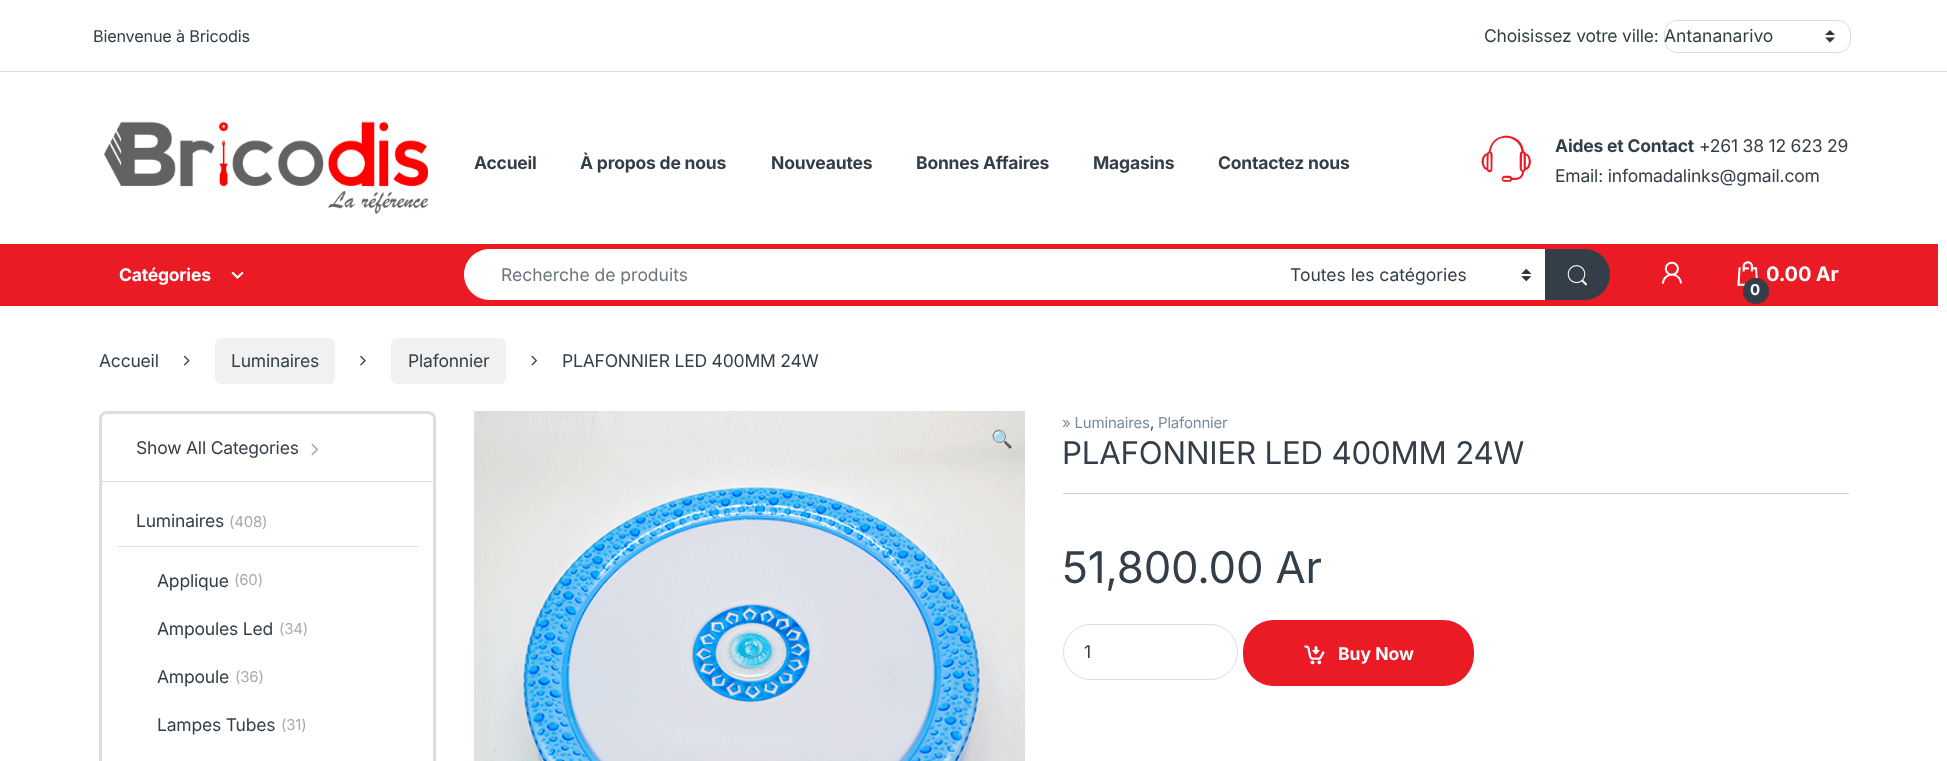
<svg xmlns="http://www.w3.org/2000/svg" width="1947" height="761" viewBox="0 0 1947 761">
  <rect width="100%" height="100%" fill="#ffffff"/>
  <rect x="0" y="71" width="1947" height="1" fill="#dddddd"/>
  <text x="93" y="42" font-family="Inter" font-size="16.25" letter-spacing="-0.2" fill="#333e48">Bienvenue à Bricodis</text>
  <text x="1484" y="42" font-family="Inter" font-size="17.5" letter-spacing="-0.2" fill="#334141">Choisissez votre ville:</text>
  <image x="1825" y="30" width="10" height="13" href="img1.png"/>
  <rect x="1664.5" y="20.5" width="186" height="32" rx="12.5" fill="none" stroke="#dddddd"/>
  <text x="1664" y="42" font-family="Inter" font-size="17.5" fill="#334141">Antananarivo</text>
  <image x="104" y="121" width="324" height="93" href="img2.png"/>
  <text x="474" y="169" font-family="Inter" font-size="17.5" font-weight="bold" letter-spacing="-0.2" fill="#333e48">Accueil</text>
  <text x="580" y="169" font-family="Inter" font-size="17.5" font-weight="bold" letter-spacing="-0.2" fill="#333e48">À propos de nous</text>
  <text x="771" y="169" font-family="Inter" font-size="17.5" font-weight="bold" letter-spacing="-0.2" fill="#333e48">Nouveautes</text>
  <text x="916" y="169" font-family="Inter" font-size="17.5" font-weight="bold" letter-spacing="-0.2" fill="#333e48">Bonnes Affaires</text>
  <text x="1093" y="169" font-family="Inter" font-size="17.5" font-weight="bold" letter-spacing="-0.2" fill="#333e48">Magasins</text>
  <text x="1218" y="169" font-family="Inter" font-size="17.5" font-weight="bold" letter-spacing="-0.2" fill="#333e48">Contactez nous</text>
  <image x="1481" y="135" width="50" height="47" href="img3.png"/>
  <text x="1555" y="152" font-family="Inter" font-size="17.5" font-weight="bold" letter-spacing="-0.2" fill="#333e48">Aides et Contact</text>
  <text x="1699" y="152" font-family="Inter" font-size="17.5" letter-spacing="-0.2" fill="#333e48">+261 38 12 623 29</text>
  <text x="1555" y="182" font-family="Inter" font-size="17.5" letter-spacing="-0.2" fill="#333e48">Email: infomadalinks@gmail.com</text>
  <rect x="0" y="244" width="1938" height="62" fill="#ea1b25"/>
  <text x="119" y="281" font-family="Inter" font-size="17.5" font-weight="bold" letter-spacing="-0.2" fill="#ffffff">Catégories</text>
  <image x="231" y="271" width="13" height="8" href="img4.png"/>
  <path d="M489.5 249H1276V300H489.5C475.5 300 464 288.5 464 274.5C464 260.5 475.5 249 489.5 249Z" fill="#ffffff"/>
  <text x="501" y="281" font-family="Inter" font-size="17.5" fill="#6c757d">Recherche de produits</text>
  <rect x="1276" y="249" width="269" height="51" fill="#ffffff"/>
  <image x="1521" y="268" width="11" height="14" href="img5.png"/>
  <text x="1290" y="281" font-family="Inter" font-size="17.5" fill="#333e48">Toutes les catégories</text>
  <path d="M1545 249H1584.5C1598.5 249 1610 260.5 1610 274.5C1610 288.5 1598.5 300 1584.5 300H1545Z" fill="#333e48"/>
  <image x="1567" y="265" width="21" height="21" href="img6.png"/>
  <image x="1661" y="261" width="21" height="23" href="img7.png"/>
  <image x="1737" y="261" width="21" height="25" href="img8.png"/>
  <text x="1766" y="281" font-family="Inter" font-size="20" font-weight="bold" letter-spacing="-0.2" fill="#ffffff">0.00 Ar</text>
  <circle cx="1756" cy="291" r="13" fill="#333e48"/>
  <text x="1750" y="295" font-family="Inter" font-size="15" font-weight="bold" letter-spacing="-0.2" fill="#ffffff">0</text>
  <text x="99" y="367" font-family="Inter" font-size="17.5" letter-spacing="-0.2" fill="#333e48">Accueil</text>
  <image x="183" y="355" width="7" height="11" href="img9.png"/>
  <rect x="215" y="338" width="120" height="46" rx="6" fill="#f1f1f1"/>
  <text x="231" y="367" font-family="Inter" font-size="17.5" letter-spacing="-0.2" fill="#333e48">Luminaires</text>
  <image x="360" y="355" width="6" height="11" href="img10.png"/>
  <rect x="391" y="338" width="115" height="46" rx="6" fill="#f1f1f1"/>
  <text x="408" y="367" font-family="Inter" font-size="17.5" letter-spacing="-0.2" fill="#333e48">Plafonnier</text>
  <image x="531" y="355" width="6" height="11" href="img11.png"/>
  <text x="562" y="367" font-family="Inter" font-size="17.5" letter-spacing="-0.2" fill="#333e48">PLAFONNIER LED 400MM 24W</text>
  <rect x="100.5" y="412.5" width="334" height="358" rx="6.5" fill="none" stroke="#dddddd" stroke-width="3"/>
  <rect x="101" y="481" width="333" height="1" fill="#dddddd"/>
  <text x="136" y="454" font-family="Inter" font-size="17.5" letter-spacing="-0.2" fill="#333e48">Show All Categories</text>
  <image x="311" y="443" width="8" height="13" href="img12.png"/>
  <text x="136" y="527" font-family="Inter" font-size="17.5" letter-spacing="-0.2" fill="#333e48">Luminaires</text>
  <text x="229" y="527" font-family="Inter" font-size="15" letter-spacing="-0.2" fill="#aaaaaa">(408)</text>
  <rect x="118" y="546" width="300" height="1" fill="#dddddd"/>
  <text x="157" y="587" font-family="Inter" font-size="17.5" letter-spacing="-0.2" fill="#333e48">Applique</text>
  <text x="234" y="585" font-family="Inter" font-size="15" letter-spacing="-0.2" fill="#aaaaaa">(60)</text>
  <text x="157" y="635" font-family="Inter" font-size="17.5" letter-spacing="-0.2" fill="#333e48">Ampoules Led</text>
  <text x="279" y="634" font-family="Inter" font-size="15" letter-spacing="-0.2" fill="#aaaaaa">(34)</text>
  <text x="157" y="683" font-family="Inter" font-size="17.5" letter-spacing="-0.2" fill="#333e48">Ampoule</text>
  <text x="235" y="682" font-family="Inter" font-size="15" letter-spacing="-0.2" fill="#aaaaaa">(36)</text>
  <text x="157" y="731" font-family="Inter" font-size="17.5" letter-spacing="-0.2" fill="#333e48">Lampes Tubes</text>
  <text x="281" y="730" font-family="Inter" font-size="15" letter-spacing="-0.2" fill="#aaaaaa">(31)</text>
  <image x="474" y="411" width="551" height="350" href="img13.png"/>
  <text x="991" y="445" font-family="Noto Color Emoji" font-size="17.5" letter-spacing="-0.2" fill="#333e48">🔍</text>
  <text x="1062" y="428" font-family="Inter" font-size="15" letter-spacing="-0.2" fill="#768b9e">» Luminaires</text>
  <text x="1150" y="428" font-family="Inter" font-size="15" letter-spacing="-0.2" fill="#333e48">,</text>
  <text x="1158" y="428" font-family="Inter" font-size="15" letter-spacing="-0.2" fill="#768b9e">Plafonnier</text>
  <text x="1062" y="464" font-family="Inter" font-size="31.25" letter-spacing="-0.2" fill="#333e48">PLAFONNIER LED 400MM 24W</text>
  <rect x="1063" y="493" width="786" height="1" fill="#cccfd1"/>
  <text x="1062" y="583" font-family="Inter" font-size="43.75" letter-spacing="-0.2" fill="#333e48">51,800.00 Ar</text>
  <rect x="1063.5" y="624.5" width="174" height="55" rx="27.5" fill="none" stroke="#dddddd"/>
  <text x="1084" y="658" font-family="Inter" font-size="17.5" fill="#333e48">1</text>
  <rect x="1243" y="620" width="231" height="66" rx="31" fill="#ea1b25"/>
  <image x="1304" y="645" width="21" height="20" href="img14.png"/>
  <text x="1338" y="660" font-family="Inter" font-size="17.5" font-weight="bold" fill="#ffffff">Buy Now</text>
</svg>
